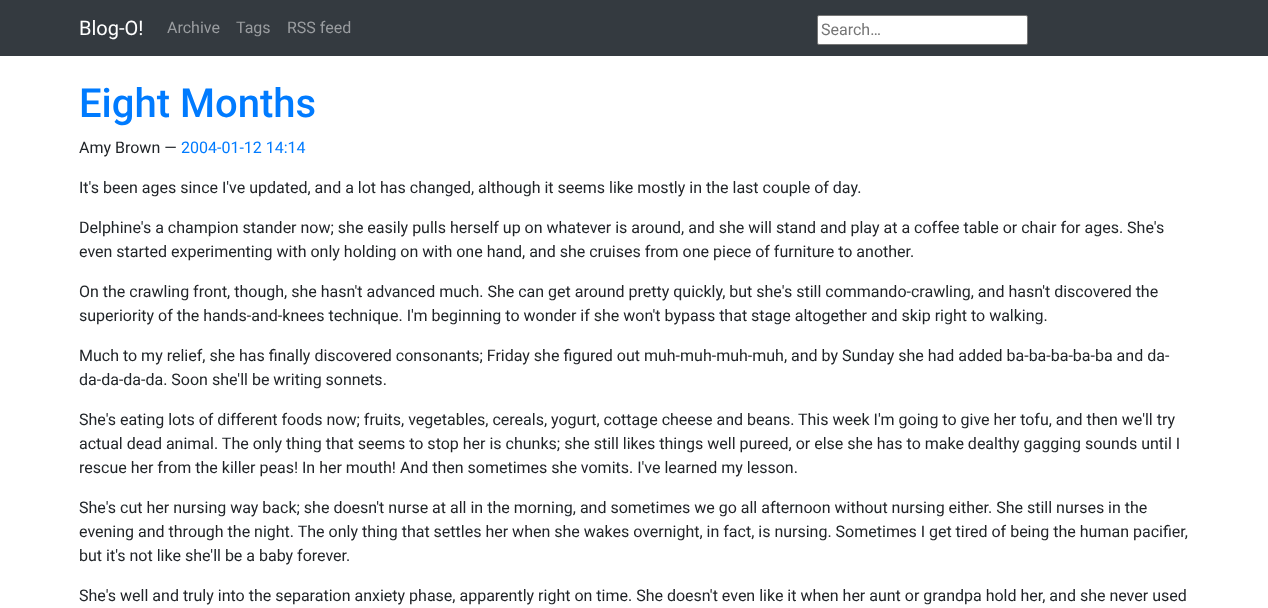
<svg xmlns="http://www.w3.org/2000/svg" width="1268" height="608" viewBox="0 0 1268 608">
  <rect width="100%" height="100%" fill="#ffffff"/>
  <rect x="0" y="0" width="1268" height="56" fill="#343a40"/>
  <text x="79" y="35" font-family="Roboto" font-size="20" fill="#ffffff">Blog-O!</text>
  <text x="167" y="33" font-family="Roboto" font-size="16" fill="#9a9da0">Archive</text>
  <text x="236" y="33" font-family="Roboto" font-size="16" fill="#9a9da0">Tags</text>
  <text x="287" y="33" font-family="Roboto" font-size="16" fill="#9a9da0">RSS feed</text>
  <rect x="817.5" y="15.5" width="210" height="29" rx="1.5" fill="#ffffff" stroke="#767676"/>
  <text x="821" y="35" font-family="Roboto" font-size="16" fill="#757575">Search…</text>
  <text x="79" y="117" font-family="Roboto" font-size="40" font-weight="500" fill="#007bff">Eight Months</text>
  <text x="79" y="153" font-family="Roboto" font-size="16" fill="#212529">Amy Brown —</text>
  <text x="181" y="153" font-family="Roboto" font-size="16" fill="#007bff">2004-01-12 14:14</text>
  <text x="79" y="193" font-family="Roboto" font-size="16" fill="#212529">It's been ages since I've updated, and a lot has changed, although it seems like mostly in the last couple of day.</text>
  <text x="79" y="233" font-family="Roboto" font-size="16" fill="#212529">Delphine's a champion stander now; she easily pulls herself up on whatever is around, and she will stand and play at a coffee table or chair for ages. She's</text>
  <text x="79" y="257" font-family="Roboto" font-size="16" fill="#212529">even started experimenting with only holding on with one hand, and she cruises from one piece of furniture to another.</text>
  <text x="79" y="297" font-family="Roboto" font-size="16" fill="#212529">On the crawling front, though, she hasn't advanced much. She can get around pretty quickly, but she's still commando-crawling, and hasn't discovered the</text>
  <text x="79" y="321" font-family="Roboto" font-size="16" fill="#212529">superiority of the hands-and-knees technique. I'm beginning to wonder if she won't bypass that stage altogether and skip right to walking.</text>
  <text x="79" y="361" font-family="Roboto" font-size="16" fill="#212529">Much to my relief, she has finally discovered consonants; Friday she figured out muh-muh-muh-muh, and by Sunday she had added ba-ba-ba-ba-ba and da-</text>
  <text x="79" y="385" font-family="Roboto" font-size="16" fill="#212529">da-da-da-da. Soon she'll be writing sonnets.</text>
  <text x="79" y="425" font-family="Roboto" font-size="16" fill="#212529">She's eating lots of different foods now; fruits, vegetables, cereals, yogurt, cottage cheese and beans.</text>
  <text x="798" y="425" font-family="Roboto" font-size="16" fill="#212529">This week I'm going to give her tofu, and then we'll try</text>
  <text x="79" y="449" font-family="Roboto" font-size="16" fill="#212529">actual dead animal. The only thing that seems to stop her is chunks; she still likes things well pureed, or else she has to make dealthy gagging sounds until I</text>
  <text x="79" y="473" font-family="Roboto" font-size="16" fill="#212529">rescue her from the killer peas! In her mouth! And then sometimes she vomits. I've learned my lesson.</text>
  <text x="79" y="513" font-family="Roboto" font-size="16" fill="#212529">She's cut her nursing way back; she doesn't nurse at all in the morning, and sometimes we go all afternoon without nursing either. She still nurses in the</text>
  <text x="79" y="537" font-family="Roboto" font-size="16" fill="#212529">evening and through the night. The only thing that settles her when she wakes overnight, in fact, is nursing. Sometimes I get tired of being the human pacifier,</text>
  <text x="79" y="561" font-family="Roboto" font-size="16" fill="#212529">but it's not like she'll be a baby forever.</text>
  <text x="79" y="601" font-family="Roboto" font-size="16" fill="#212529">She's well and truly into the separation anxiety phase, apparently right on time. She doesn't even like it when her aunt or grandpa hold her, and she never used</text>
</svg>
